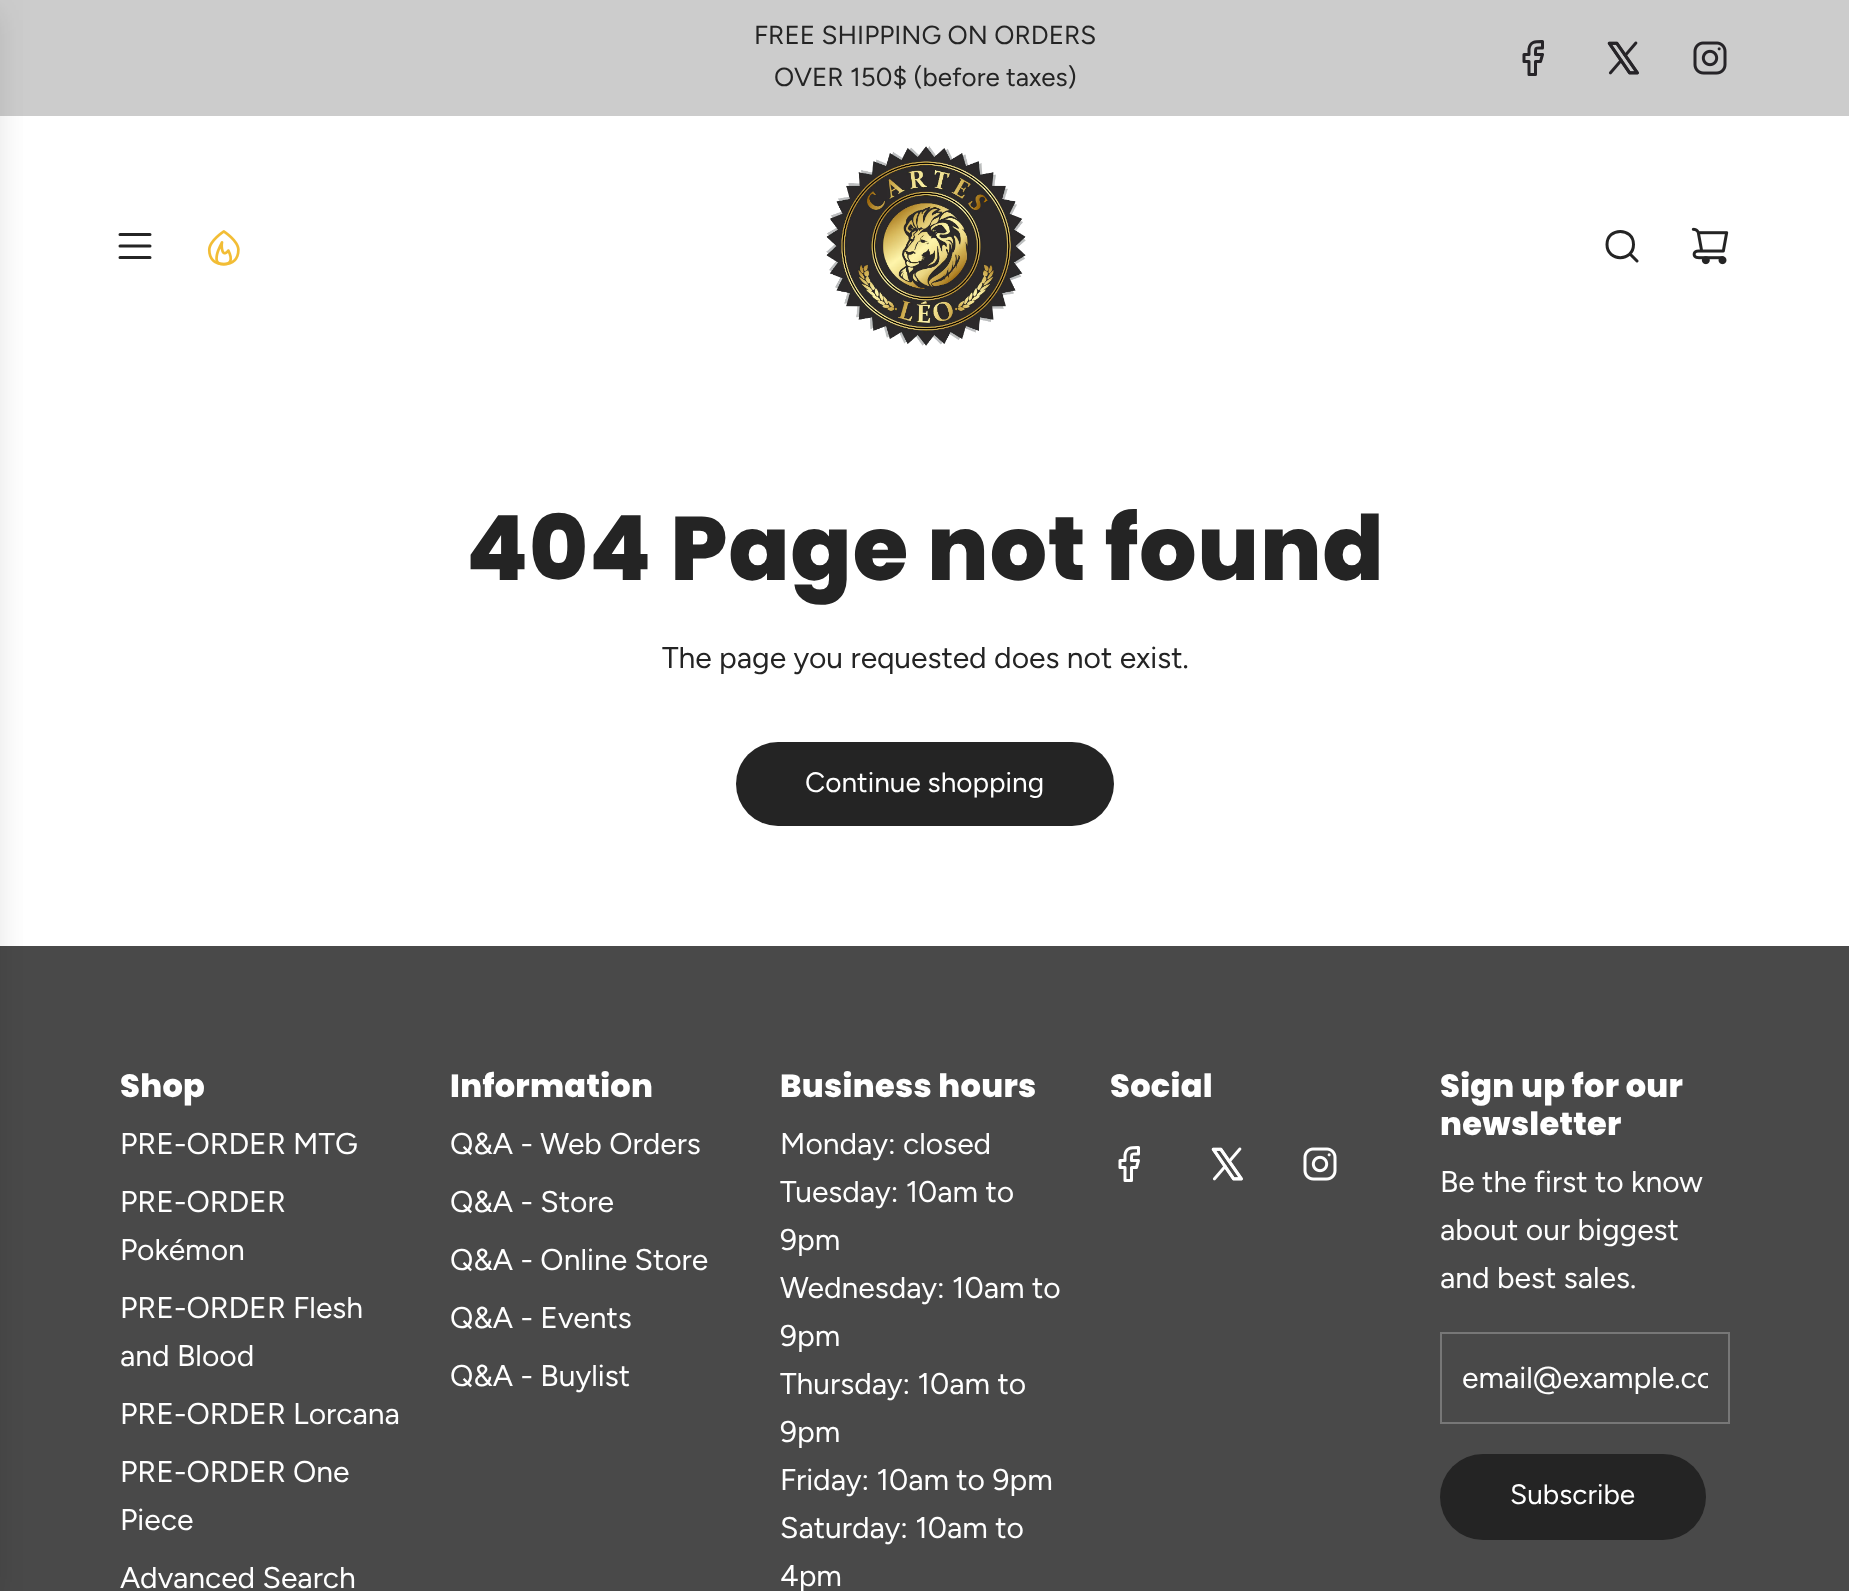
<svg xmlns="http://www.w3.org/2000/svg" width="1849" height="1591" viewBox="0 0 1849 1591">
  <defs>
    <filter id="blur1" x="-50%" y="-200%" width="200%" height="500%"><feGaussianBlur stdDeviation="15"/></filter>
    <clipPath id="clip1"><rect x="1462" y="1360" width="246" height="36"/></clipPath>
  </defs>
  <rect width="100%" height="100%" fill="#ffffff"/>
  <rect x="0" y="0" width="1849" height="116" fill="#cccccc"/>
  <rect x="0" y="946" width="1849" height="645" fill="#494949"/>
  <rect x="-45" y="10" width="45" height="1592" fill="#000000" fill-opacity="0.1" filter="url(#blur1)"/>
  <path d="M120 234.5H150M120 246H150M120 257.5H150" fill="none" stroke="#242424" stroke-width="3" stroke-linecap="round" stroke-linejoin="round"/>
  <image x="207" y="230" width="33" height="36" href="img1.png"/>
  <image x="826" y="146" width="200" height="200" href="img2.png"/>
  <path d="M1630.5 254.5L1637 261M1607 244.5C1607 262 1633.5 262 1633.5 244.5C1633.5 227 1607 227 1607 244.5Z" fill="none" stroke="#242424" stroke-width="3" stroke-linecap="round" stroke-linejoin="round"/>
  <image x="1691" y="227" width="38" height="38" href="img3.png"/>
  <text x="754" y="44" font-family="Figtree" font-size="26" fill="#242424">FREE SHIPPING ON ORDERS</text>
  <text x="774" y="86" font-family="Figtree" font-size="26" fill="#242424">OVER 150$ (before taxes)</text>
  <path d="M1542.5 41.5C1536.5 41.5 1530 41 1529 49V54.5H1524V61.5H1529V74.5H1535.5V61.5H1540.5L1542.5 54.5H1535.5C1535.5 47 1535 48 1542.5 48Z" fill="none" stroke="#262428" stroke-width="3" stroke-linecap="round" stroke-linejoin="round"/>
  <image x="1607" y="41" width="32" height="34" href="img4.png"/>
  <image x="1693" y="41" width="34" height="34" href="img5.png"/>
  <text x="466" y="580" font-family="Poppins" font-size="90" font-weight="800" letter-spacing="0.9" fill="#242424">404 Page not found</text>
  <text x="662" y="668" font-family="Figtree" font-size="30" fill="#242424">The page you requested does not exist.</text>
  <rect x="736" y="742" width="378" height="84" rx="42" fill="#242424"/>
  <text x="805" y="792" font-family="Figtree" font-size="28" fill="#ffffff">Continue shopping</text>
  <text x="120" y="1097" font-family="Poppins" font-size="32" font-weight="800" letter-spacing="0.3" fill="#ffffff">Shop</text>
  <text x="120" y="1154" font-family="Figtree" font-size="30" fill="#ffffff">PRE-ORDER MTG</text>
  <text x="120" y="1212" font-family="Figtree" font-size="30" fill="#ffffff">PRE-ORDER</text>
  <text x="120" y="1260" font-family="Figtree" font-size="30" fill="#ffffff">Pokémon</text>
  <text x="120" y="1318" font-family="Figtree" font-size="30" fill="#ffffff">PRE-ORDER Flesh</text>
  <text x="120" y="1366" font-family="Figtree" font-size="30" fill="#ffffff">and Blood</text>
  <text x="120" y="1424" font-family="Figtree" font-size="30" fill="#ffffff">PRE-ORDER Lorcana</text>
  <text x="120" y="1482" font-family="Figtree" font-size="30" fill="#ffffff">PRE-ORDER One</text>
  <text x="120" y="1530" font-family="Figtree" font-size="30" fill="#ffffff">Piece</text>
  <text x="120" y="1588" font-family="Figtree" font-size="30" fill="#ffffff">Advanced Search</text>
  <text x="450" y="1097" font-family="Poppins" font-size="32" font-weight="800" letter-spacing="0.3" fill="#ffffff">Information</text>
  <text x="450" y="1154" font-family="Figtree" font-size="30" fill="#ffffff">Q&amp;A - Web Orders</text>
  <text x="450" y="1212" font-family="Figtree" font-size="30" fill="#ffffff">Q&amp;A - Store</text>
  <text x="450" y="1270" font-family="Figtree" font-size="30" fill="#ffffff">Q&amp;A - Online Store</text>
  <text x="450" y="1328" font-family="Figtree" font-size="30" fill="#ffffff">Q&amp;A - Events</text>
  <text x="450" y="1386" font-family="Figtree" font-size="30" fill="#ffffff">Q&amp;A - Buylist</text>
  <text x="780" y="1097" font-family="Poppins" font-size="32" font-weight="800" letter-spacing="0.3" fill="#ffffff">Business hours</text>
  <text x="780" y="1154" font-family="Figtree" font-size="30" fill="#ffffff">Monday: closed</text>
  <text x="780" y="1202" font-family="Figtree" font-size="30" fill="#ffffff">Tuesday: 10am to</text>
  <text x="780" y="1250" font-family="Figtree" font-size="30" fill="#ffffff">9pm</text>
  <text x="780" y="1298" font-family="Figtree" font-size="30" fill="#ffffff">Wednesday: 10am to</text>
  <text x="780" y="1346" font-family="Figtree" font-size="30" fill="#ffffff">9pm</text>
  <text x="780" y="1394" font-family="Figtree" font-size="30" fill="#ffffff">Thursday: 10am to</text>
  <text x="780" y="1442" font-family="Figtree" font-size="30" fill="#ffffff">9pm</text>
  <text x="780" y="1490" font-family="Figtree" font-size="30" fill="#ffffff">Friday: 10am to 9pm</text>
  <text x="780" y="1538" font-family="Figtree" font-size="30" fill="#ffffff">Saturday: 10am to</text>
  <text x="780" y="1586" font-family="Figtree" font-size="30" fill="#ffffff">4pm</text>
  <text x="1110" y="1097" font-family="Poppins" font-size="32" font-weight="800" letter-spacing="0.3" fill="#ffffff">Social</text>
  <path d="M1138.5 1147.5C1132.5 1147.5 1126 1147 1125 1155V1160.5H1120V1167.5H1125V1180.5H1131.5V1167.5H1136.5L1138.5 1160.5H1131.5C1131.5 1153 1131 1154 1138.5 1154Z" fill="none" stroke="#ffffff" stroke-width="3" stroke-linecap="round" stroke-linejoin="round"/>
  <image x="1211" y="1147" width="32" height="34" href="img6.png"/>
  <image x="1303" y="1147" width="34" height="34" href="img7.png"/>
  <text x="1440" y="1097" font-family="Poppins" font-size="32" font-weight="800" letter-spacing="0.3" fill="#ffffff">Sign up for our</text>
  <text x="1440" y="1135" font-family="Poppins" font-size="32" font-weight="800" letter-spacing="0.3" fill="#ffffff">newsletter</text>
  <text x="1440" y="1192" font-family="Figtree" font-size="30" fill="#ffffff">Be the first to know</text>
  <text x="1440" y="1240" font-family="Figtree" font-size="30" fill="#ffffff">about our biggest</text>
  <text x="1440" y="1288" font-family="Figtree" font-size="30" fill="#ffffff">and best sales.</text>
  <rect x="1441" y="1333" width="288" height="90" fill="none" stroke="#777777" stroke-width="2"/>
  <g clip-path="url(#clip1)">
    <text x="1462" y="1388" font-family="Figtree" font-size="30" fill="#ffffff">email@example.co</text>
  </g>
  <rect x="1440" y="1454" width="266" height="86" rx="43" fill="#242424"/>
  <text x="1510" y="1504" font-family="Figtree" font-size="28" fill="#ffffff">Subscribe</text>
</svg>
